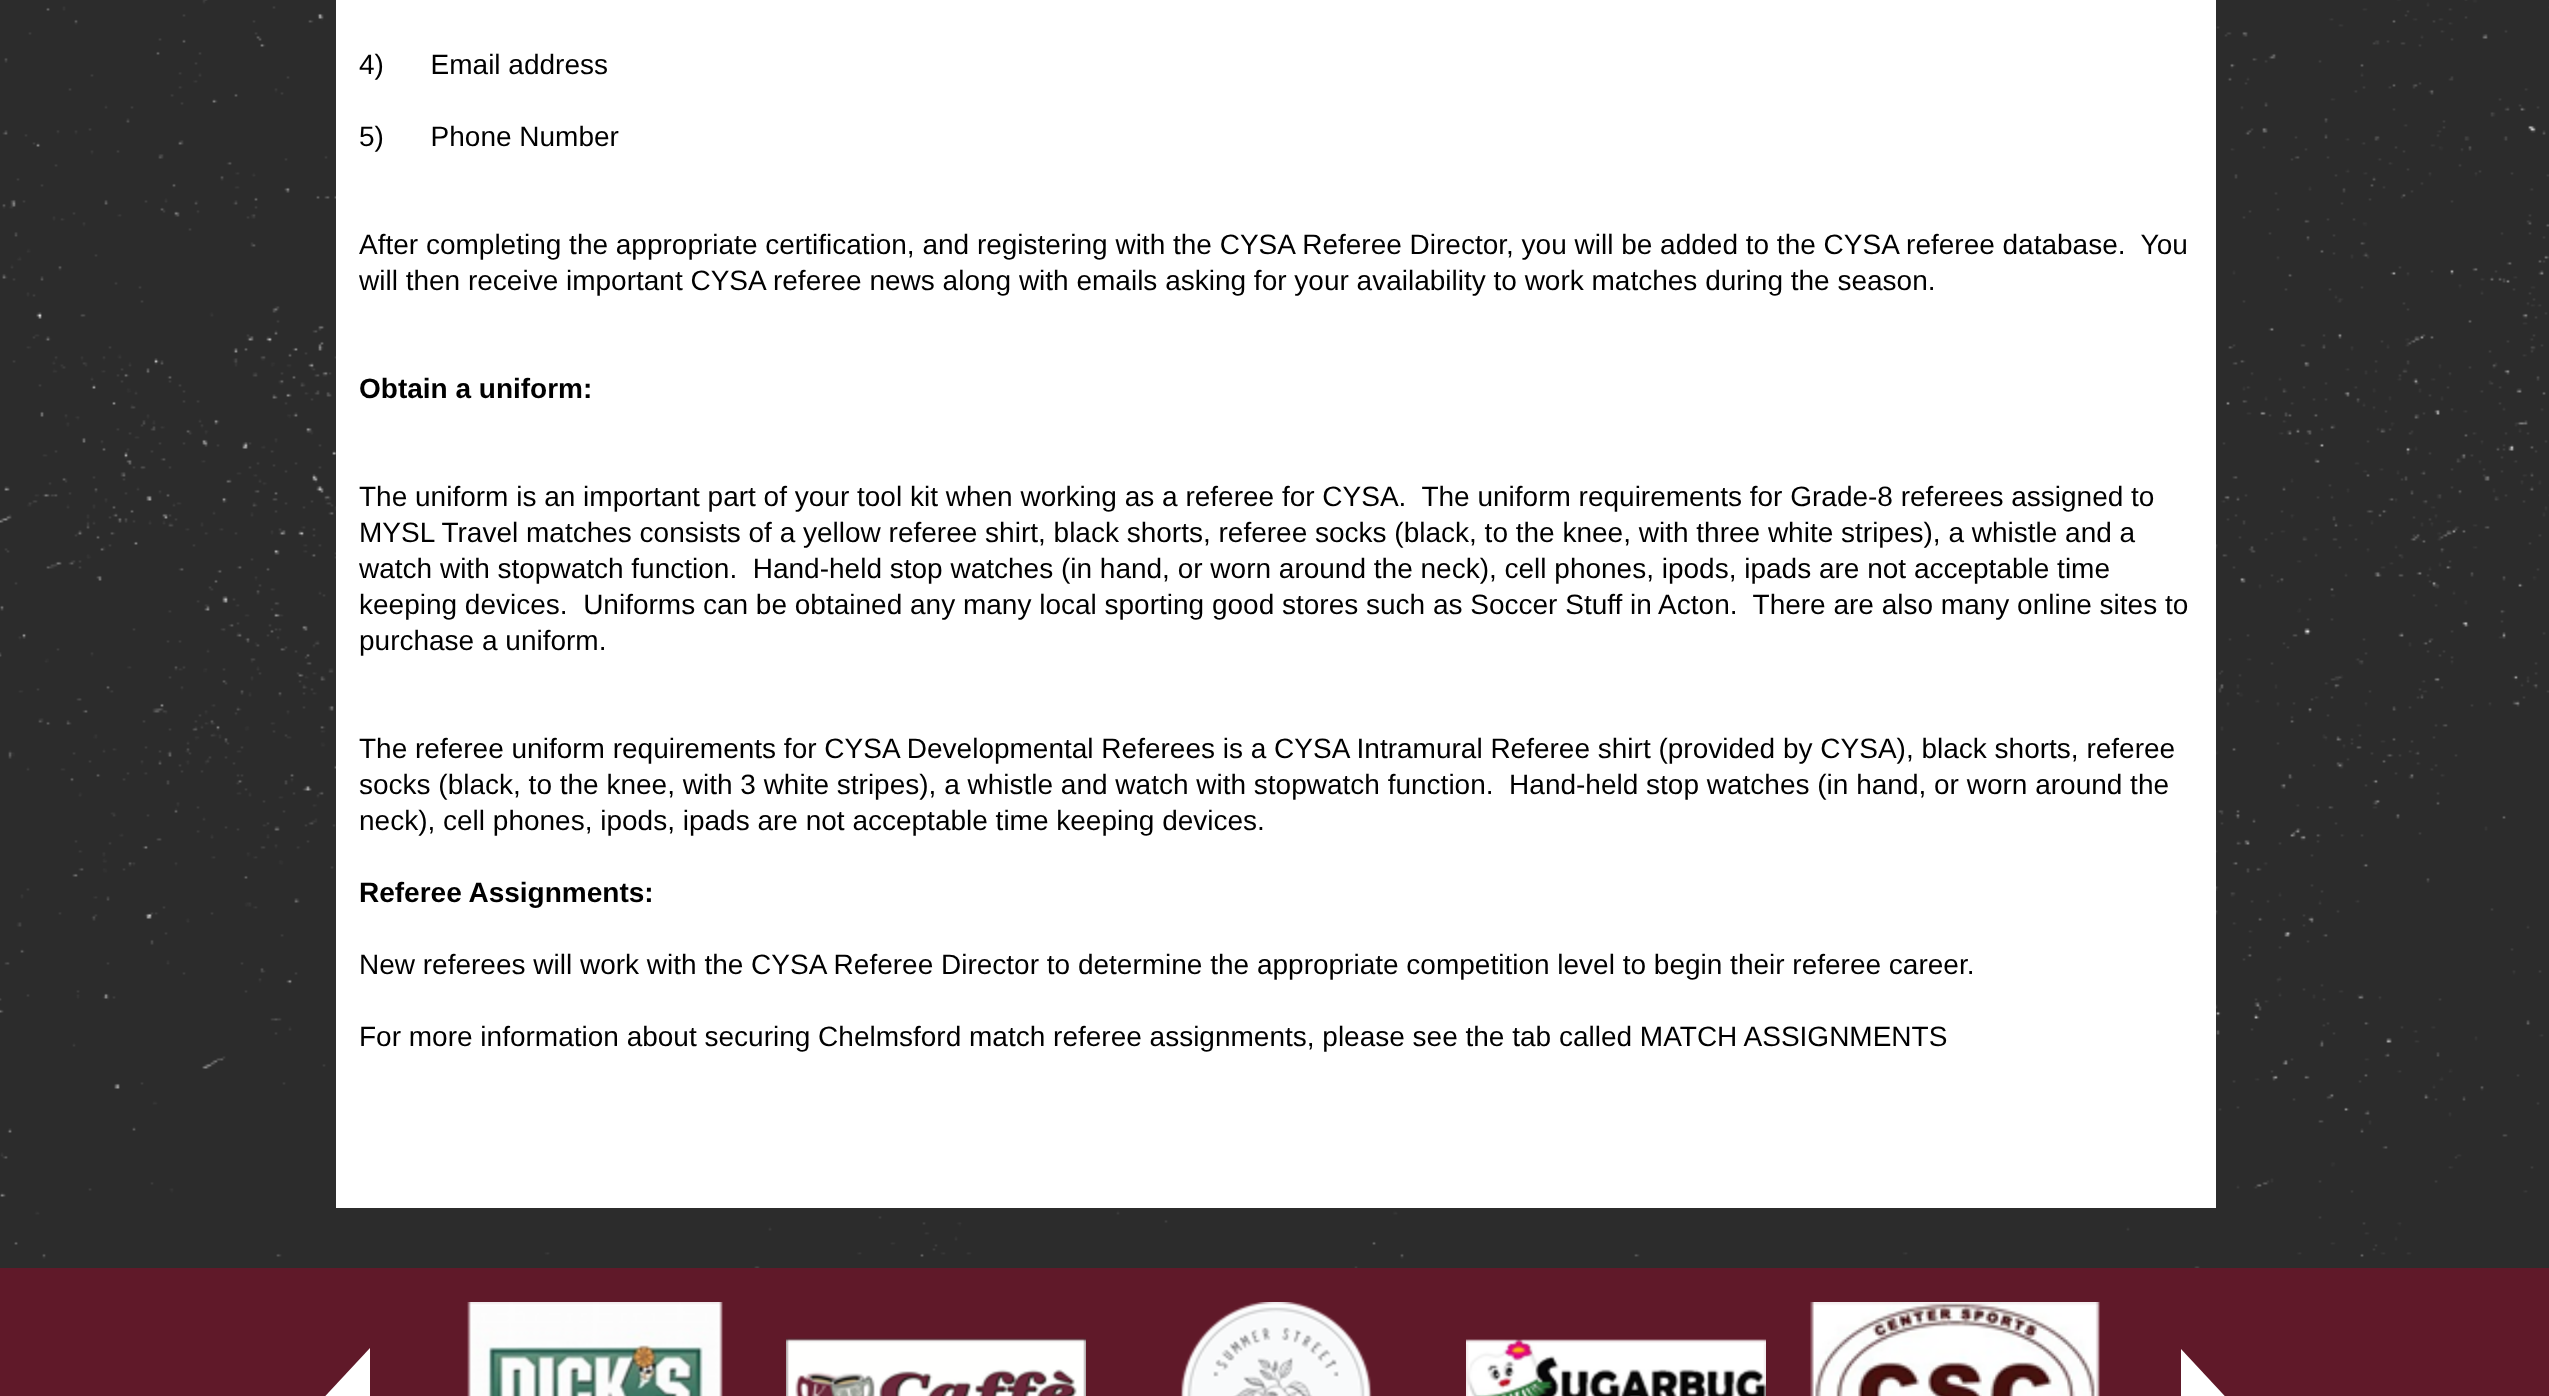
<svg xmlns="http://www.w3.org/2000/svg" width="2549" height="1396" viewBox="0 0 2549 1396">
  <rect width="100%" height="100%" fill="#2c2c2c"/>
  <image x="0" y="0" width="2549" height="1268" href="img1.png"/>
  <rect x="336" y="0" width="1880" height="1208" fill="#ffffff"/>
  <text x="359" y="74" font-family="Liberation Sans" font-size="28" fill="#000000" xml:space="preserve">4)      Email address</text>
  <text x="359" y="146" font-family="Liberation Sans" font-size="28" fill="#000000" xml:space="preserve">5)      Phone Number</text>
  <text x="359" y="254" font-family="Liberation Sans" font-size="28" fill="#000000" xml:space="preserve">After completing the appropriate certification, and registering with the CYSA Referee Director, you will be added to the CYSA referee database.  You</text>
  <text x="359" y="290" font-family="Liberation Sans" font-size="28" fill="#000000">will then receive important CYSA referee news along with emails asking for your availability to work matches during the season.</text>
  <text x="359" y="398" font-family="Liberation Sans" font-size="28" font-weight="bold" fill="#000000">Obtain a uniform:</text>
  <text x="359" y="506" font-family="Liberation Sans" font-size="28" fill="#000000" xml:space="preserve">The uniform is an important part of your tool kit when working as a referee for CYSA.  The uniform requirements for Grade-8 referees assigned to</text>
  <text x="359" y="542" font-family="Liberation Sans" font-size="28" fill="#000000">MYSL Travel matches consists of a yellow referee shirt, black shorts, referee socks (black, to the knee, with three white stripes), a whistle and a</text>
  <text x="359" y="578" font-family="Liberation Sans" font-size="28" fill="#000000" xml:space="preserve">watch with stopwatch function.  Hand-held stop watches (in hand, or worn around the neck), cell phones, ipods, ipads are not acceptable time</text>
  <text x="359" y="614" font-family="Liberation Sans" font-size="28" fill="#000000" xml:space="preserve">keeping devices.  Uniforms can be obtained any many local sporting good stores such as Soccer Stuff in Acton.  There are also many online sites to</text>
  <text x="359" y="650" font-family="Liberation Sans" font-size="28" fill="#000000">purchase a uniform.</text>
  <text x="359" y="758" font-family="Liberation Sans" font-size="28" fill="#000000">The referee uniform requirements for CYSA Developmental Referees is a CYSA Intramural Referee shirt (provided by CYSA), black shorts, referee</text>
  <text x="359" y="794" font-family="Liberation Sans" font-size="28" fill="#000000" xml:space="preserve">socks (black, to the knee, with 3 white stripes), a whistle and watch with stopwatch function.  Hand-held stop watches (in hand, or worn around the</text>
  <text x="359" y="830" font-family="Liberation Sans" font-size="28" fill="#000000">neck), cell phones, ipods, ipads are not acceptable time keeping devices.</text>
  <text x="359" y="902" font-family="Liberation Sans" font-size="28" font-weight="bold" fill="#000000">Referee Assignments:</text>
  <text x="359" y="974" font-family="Liberation Sans" font-size="28" fill="#000000">New referees will work with the CYSA Referee Director to determine the appropriate competition level to begin their referee career.</text>
  <text x="359" y="1046" font-family="Liberation Sans" font-size="28" fill="#000000">For more information about securing Chelmsford match referee assignments, please see the tab called MATCH ASSIGNMENTS</text>
  <rect x="0" y="1268" width="2549" height="128" fill="#601929"/>
  <path d="M370 1348V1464L316 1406Z" fill="#ffffff"/>
  <image x="467" y="1302" width="256" height="94" href="img2.png"/>
  <image x="786" y="1338" width="300" height="58" href="img3.png"/>
  <image x="1180" y="1302" width="192" height="94" href="img4.png"/>
  <image x="1466" y="1339" width="300" height="57" href="img5.png"/>
  <image x="1810" y="1302" width="290" height="94" href="img6.png"/>
  <path d="M2181 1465V1349L2235 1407Z" fill="#ffffff"/>
</svg>
